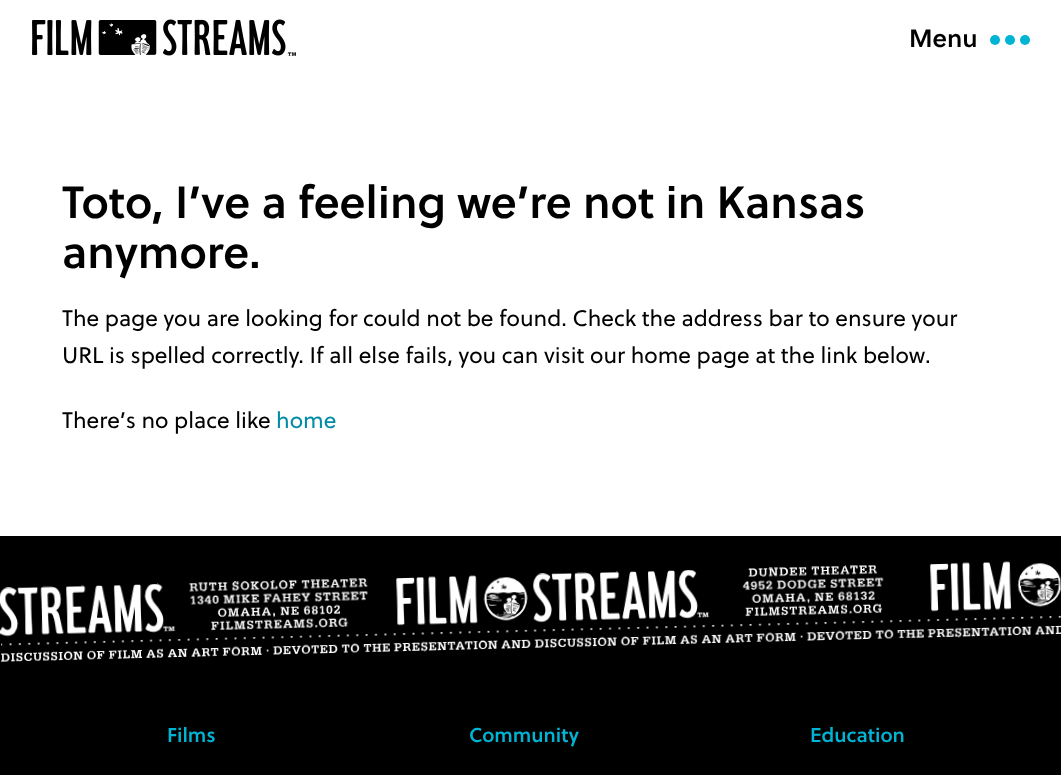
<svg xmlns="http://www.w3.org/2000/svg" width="1061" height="775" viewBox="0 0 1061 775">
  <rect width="100%" height="100%" fill="#ffffff"/>
  <image x="32" y="19" width="264" height="37" href="img1.png"/>
  <text x="909" y="47" font-family="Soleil" font-size="25" font-weight="600" fill="#000000">Menu</text>
  <circle cx="995" cy="40" r="5" fill="#00b4d4"/>
  <circle cx="1010" cy="40" r="5" fill="#00b4d4"/>
  <circle cx="1025" cy="40" r="5" fill="#00b4d4"/>
  <text x="62" y="218" font-family="Soleil" font-size="45" font-weight="600" fill="#000000">Toto, I’ve a feeling we’re not in Kansas</text>
  <text x="62" y="268" font-family="Soleil" font-size="45" font-weight="600" fill="#000000">anymore.</text>
  <text x="62" y="326" font-family="Soleil" font-size="22.5" fill="#000000">The page you are looking for could not be found. Check the address bar to ensure your</text>
  <text x="62" y="363" font-family="Soleil" font-size="22.5" fill="#000000">URL is spelled correctly. If all else fails, you can visit our home page at the link below.</text>
  <text x="62" y="428" font-family="Soleil" font-size="22.5" fill="#000000">There’s no place like</text>
  <text x="276" y="428" font-family="Soleil" font-size="22.5" fill="#008ca5">home</text>
  <rect x="0" y="536" width="1061" height="239" fill="#000000"/>
  <image x="0" y="561" width="1061" height="101" href="img2.png"/>
  <text x="167" y="742" font-family="Soleil" font-size="20" font-weight="600" fill="#00b4d4">Films</text>
  <text x="469" y="742" font-family="Soleil" font-size="20" font-weight="600" fill="#00b4d4">Community</text>
  <text x="810" y="742" font-family="Soleil" font-size="20" font-weight="600" fill="#00b4d4">Education</text>
</svg>
